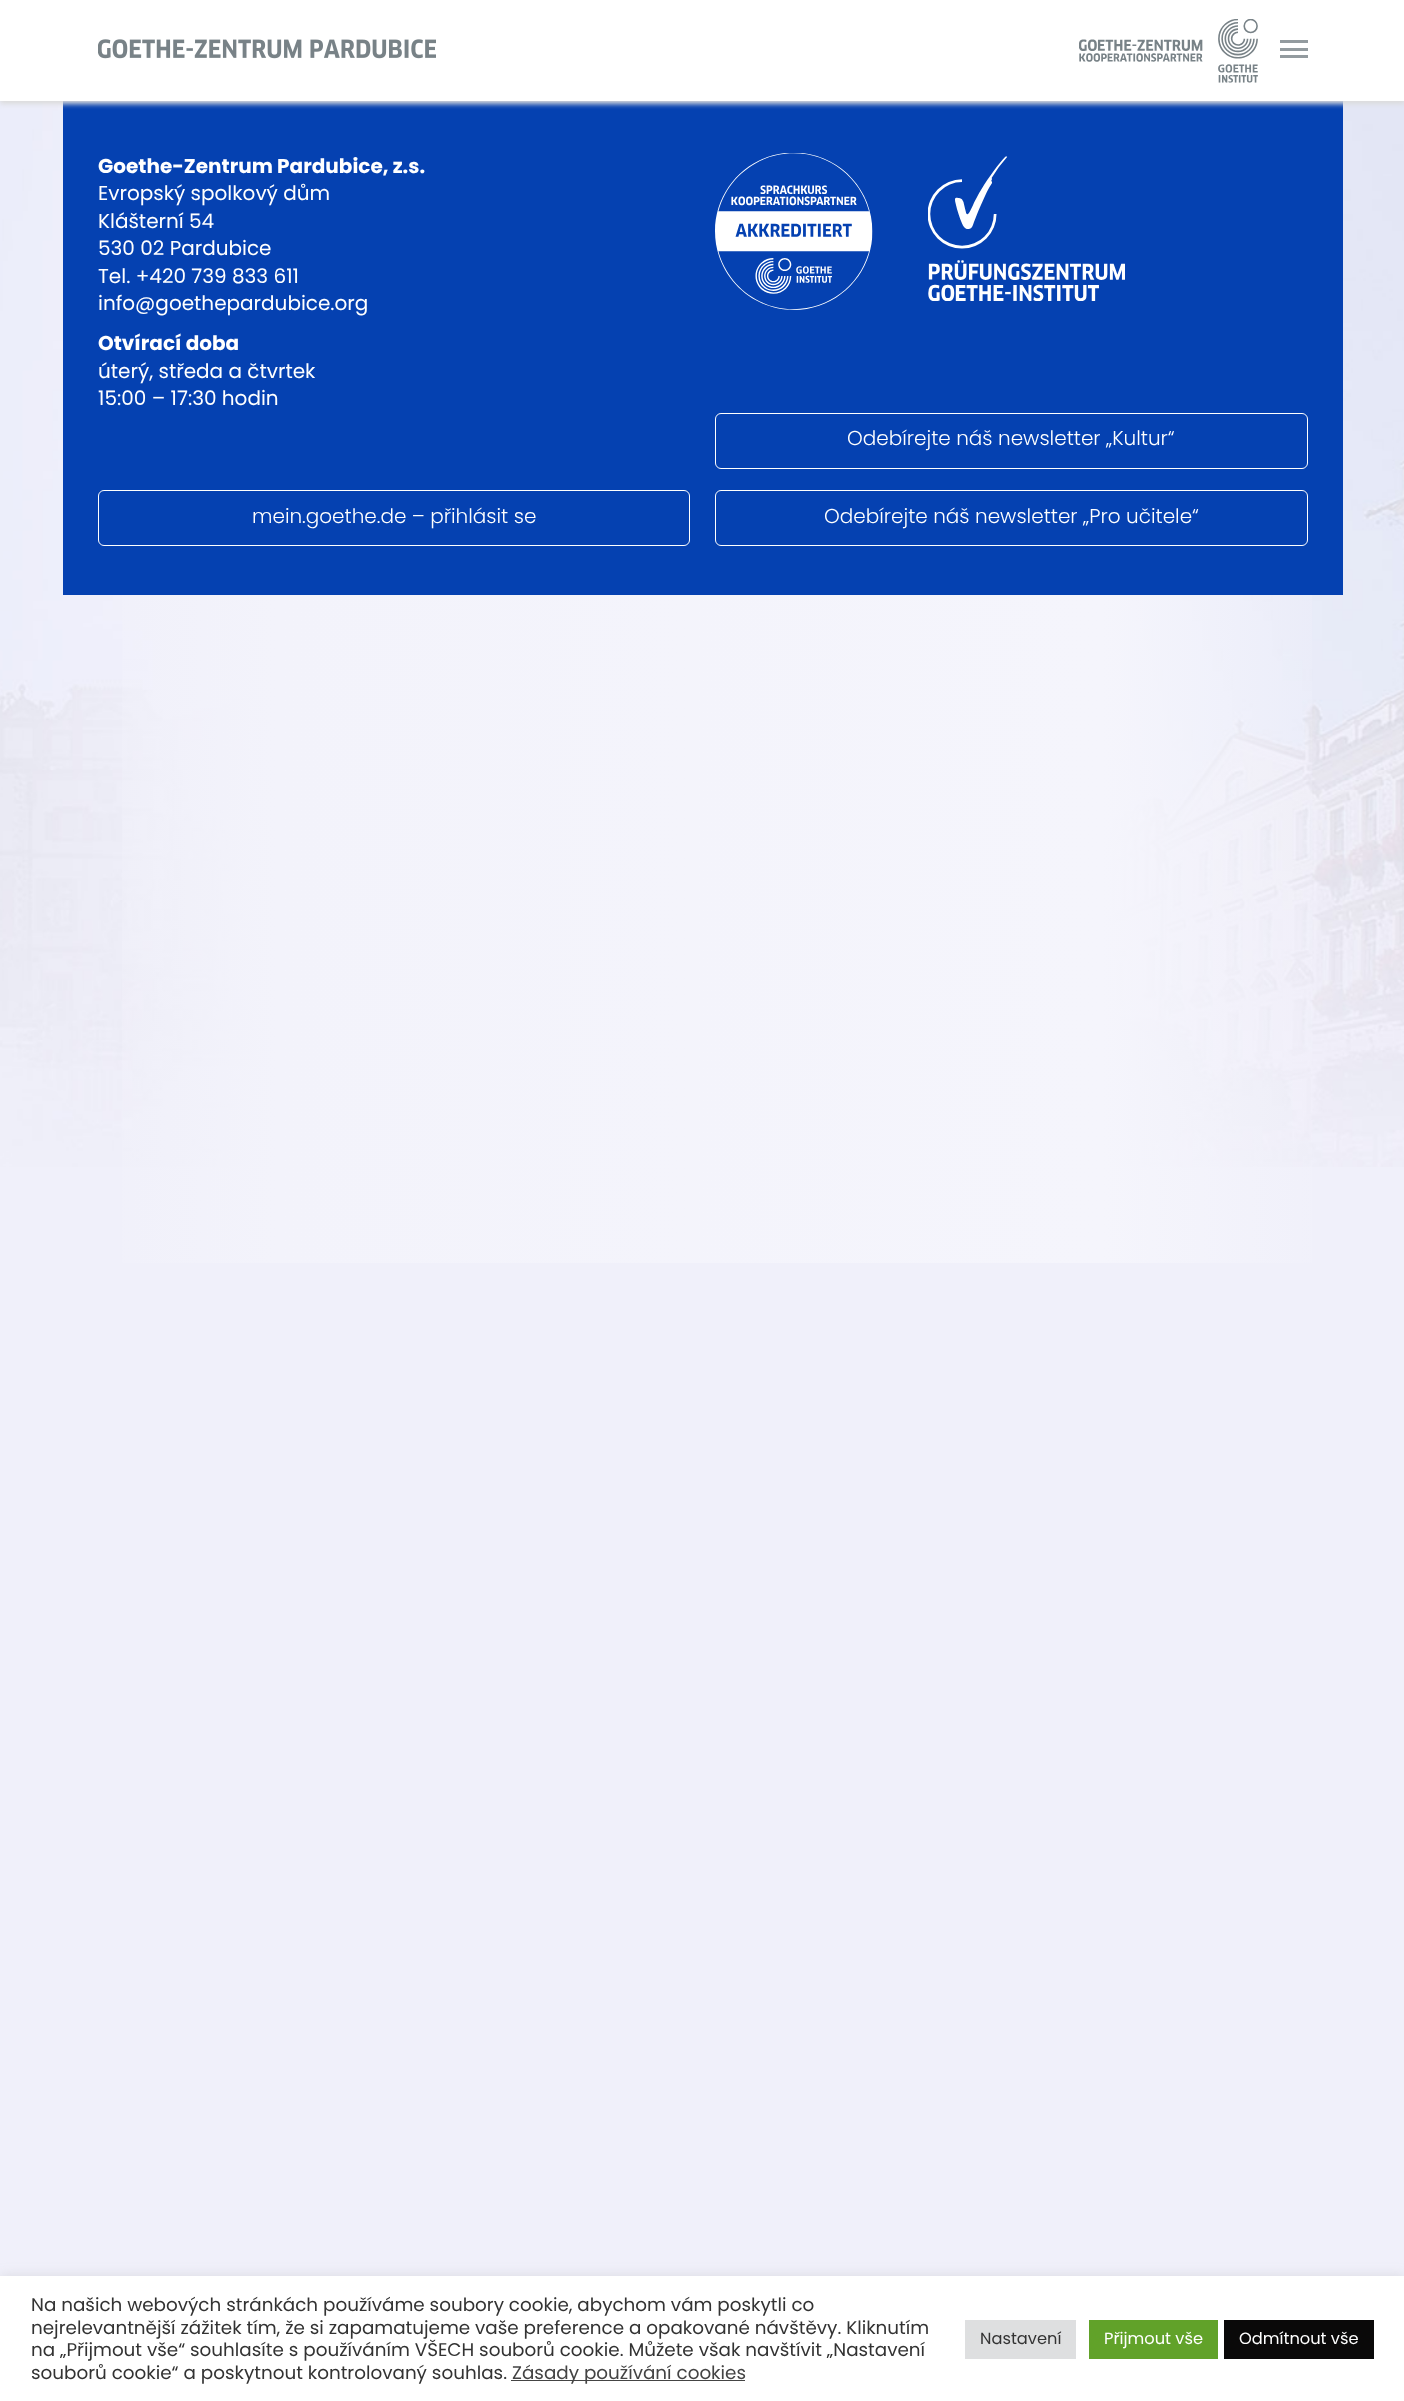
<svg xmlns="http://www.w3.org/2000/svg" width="1404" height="2401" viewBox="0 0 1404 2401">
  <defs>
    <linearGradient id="g1" gradientUnits="userSpaceOnUse" x1="1348" y1="700" x2="57" y2="700"><stop offset="0" stop-color="#f5f5fc" stop-opacity="0"/><stop offset="0.19" stop-color="#f5f5fc"/><stop offset="0.83" stop-color="#f3f3fb"/><stop offset="1" stop-color="#f3f3fb" stop-opacity="0"/></linearGradient>
    <filter id="blur1" x="-50%" y="-200%" width="200%" height="500%"><feGaussianBlur stdDeviation="2.5"/></filter>
    <filter id="blur2" x="-50%" y="-200%" width="200%" height="500%"><feGaussianBlur stdDeviation="6"/></filter>
  </defs>
  <rect width="100%" height="100%" fill="#f0f0fa"/>
  <image x="0" y="101" width="1404" height="1066" href="img1.png"/>
  <rect x="122" y="138" width="1190" height="1125" fill="url(#g1)"/>
  <rect x="63" y="101" width="1280" height="494" fill="#0541b1"/>
  <rect x="0" y="3" width="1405" height="101" fill="#dbdbdb" filter="url(#blur1)"/>
  <rect x="0" y="0" width="1404" height="101" fill="#ffffff"/>
  <image x="98" y="39" width="338" height="20" href="img2.png"/>
  <image x="1079" y="19" width="179" height="64" href="img3.png"/>
  <rect x="1280" y="40" width="28" height="3" fill="#939b9f"/>
  <rect x="1280" y="48" width="28" height="3" fill="#939b9f"/>
  <rect x="1280" y="55" width="28" height="3" fill="#939b9f"/>
  <text x="98" y="173" font-family="Poppins" font-size="20" font-weight="bold" fill="#ffffff">Goethe-Zentrum Pardubice, z.s.</text>
  <text x="98" y="200" font-family="Poppins" font-size="20" fill="#ffffff">Evropský spolkový dům</text>
  <text x="98" y="228" font-family="Poppins" font-size="20" fill="#ffffff">Klášterní 54</text>
  <text x="98" y="255" font-family="Poppins" font-size="20" fill="#ffffff">530 02 Pardubice</text>
  <text x="98" y="283" font-family="Poppins" font-size="20" fill="#ffffff">Tel. +420 739 833 611</text>
  <text x="98" y="310" font-family="Poppins" font-size="20" fill="#ffffff">info@goethepardubice.org</text>
  <text x="98" y="350" font-family="Poppins" font-size="20" font-weight="bold" fill="#ffffff">Otvírací doba</text>
  <text x="98" y="378" font-family="Poppins" font-size="20" fill="#ffffff">úterý, středa a čtvrtek</text>
  <text x="98" y="405" font-family="Poppins" font-size="20" fill="#ffffff">15:00 – 17:30 hodin</text>
  <rect x="98.5" y="490.5" width="591" height="55" rx="5.5" fill="none" stroke="#ffffff"/>
  <text x="252" y="523" font-family="Poppins" font-size="20" font-weight="300" fill="#ffffff">mein.goethe.de – přihlásit se</text>
  <image x="715" y="153" width="158" height="157" href="img4.png"/>
  <image x="928" y="156" width="197" height="145" href="img5.png"/>
  <rect x="715.5" y="413.5" width="592" height="55" rx="5.5" fill="none" stroke="#ffffff"/>
  <text x="847" y="445" font-family="Poppins" font-size="20" font-weight="300" fill="#ffffff">Odebírejte náš newsletter „Kultur“</text>
  <rect x="715.5" y="490.5" width="592" height="55" rx="5.5" fill="none" stroke="#ffffff"/>
  <text x="824" y="523" font-family="Poppins" font-size="20" font-weight="300" fill="#ffffff">Odebírejte náš newsletter „Pro učitele“</text>
  <rect x="0" y="2275" width="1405" height="125" fill="#acabab" fill-opacity="0.3" filter="url(#blur2)"/>
  <rect x="0" y="2276" width="1404" height="125" fill="#ffffff"/>
  <text x="31" y="2311" font-family="Poppins" font-size="18.35" fill="#333333">Na našich webových stránkách používáme soubory cookie, abychom vám poskytli co</text>
  <text x="31" y="2334" font-family="Poppins" font-size="18.35" fill="#333333">nejrelevantnější zážitek tím, že si zapamatujeme vaše preference a opakované návštěvy. Kliknutím</text>
  <text x="31" y="2356" font-family="Poppins" font-size="18.35" fill="#333333">na „Přijmout vše“ souhlasíte s používáním VŠECH souborů cookie. Můžete však navštívit „Nastavení</text>
  <text x="31" y="2379" font-family="Poppins" font-size="18.35" fill="#333333">souborů cookie“ a poskytnout kontrolovaný souhlas.</text>
  <rect x="511" y="2380" width="234" height="1" fill="#444444"/>
  <text x="512" y="2379" font-family="Poppins" font-size="18.35" fill="#444444">Zásady používání cookies</text>
  <rect x="965" y="2320" width="111" height="39" fill="#dedfe0"/>
  <text x="980" y="2344" font-family="Poppins" font-size="16.25" fill="#333333">Nastavení</text>
  <rect x="1089" y="2320" width="129" height="39" fill="#61a229"/>
  <text x="1104" y="2344" font-family="Poppins" font-size="16.25" fill="#ffffff">Přijmout vše</text>
  <rect x="1224" y="2320" width="150" height="39" fill="#0a0909"/>
  <text x="1239" y="2344" font-family="Poppins" font-size="16.25" fill="#ffffff">Odmítnout vše</text>
</svg>
